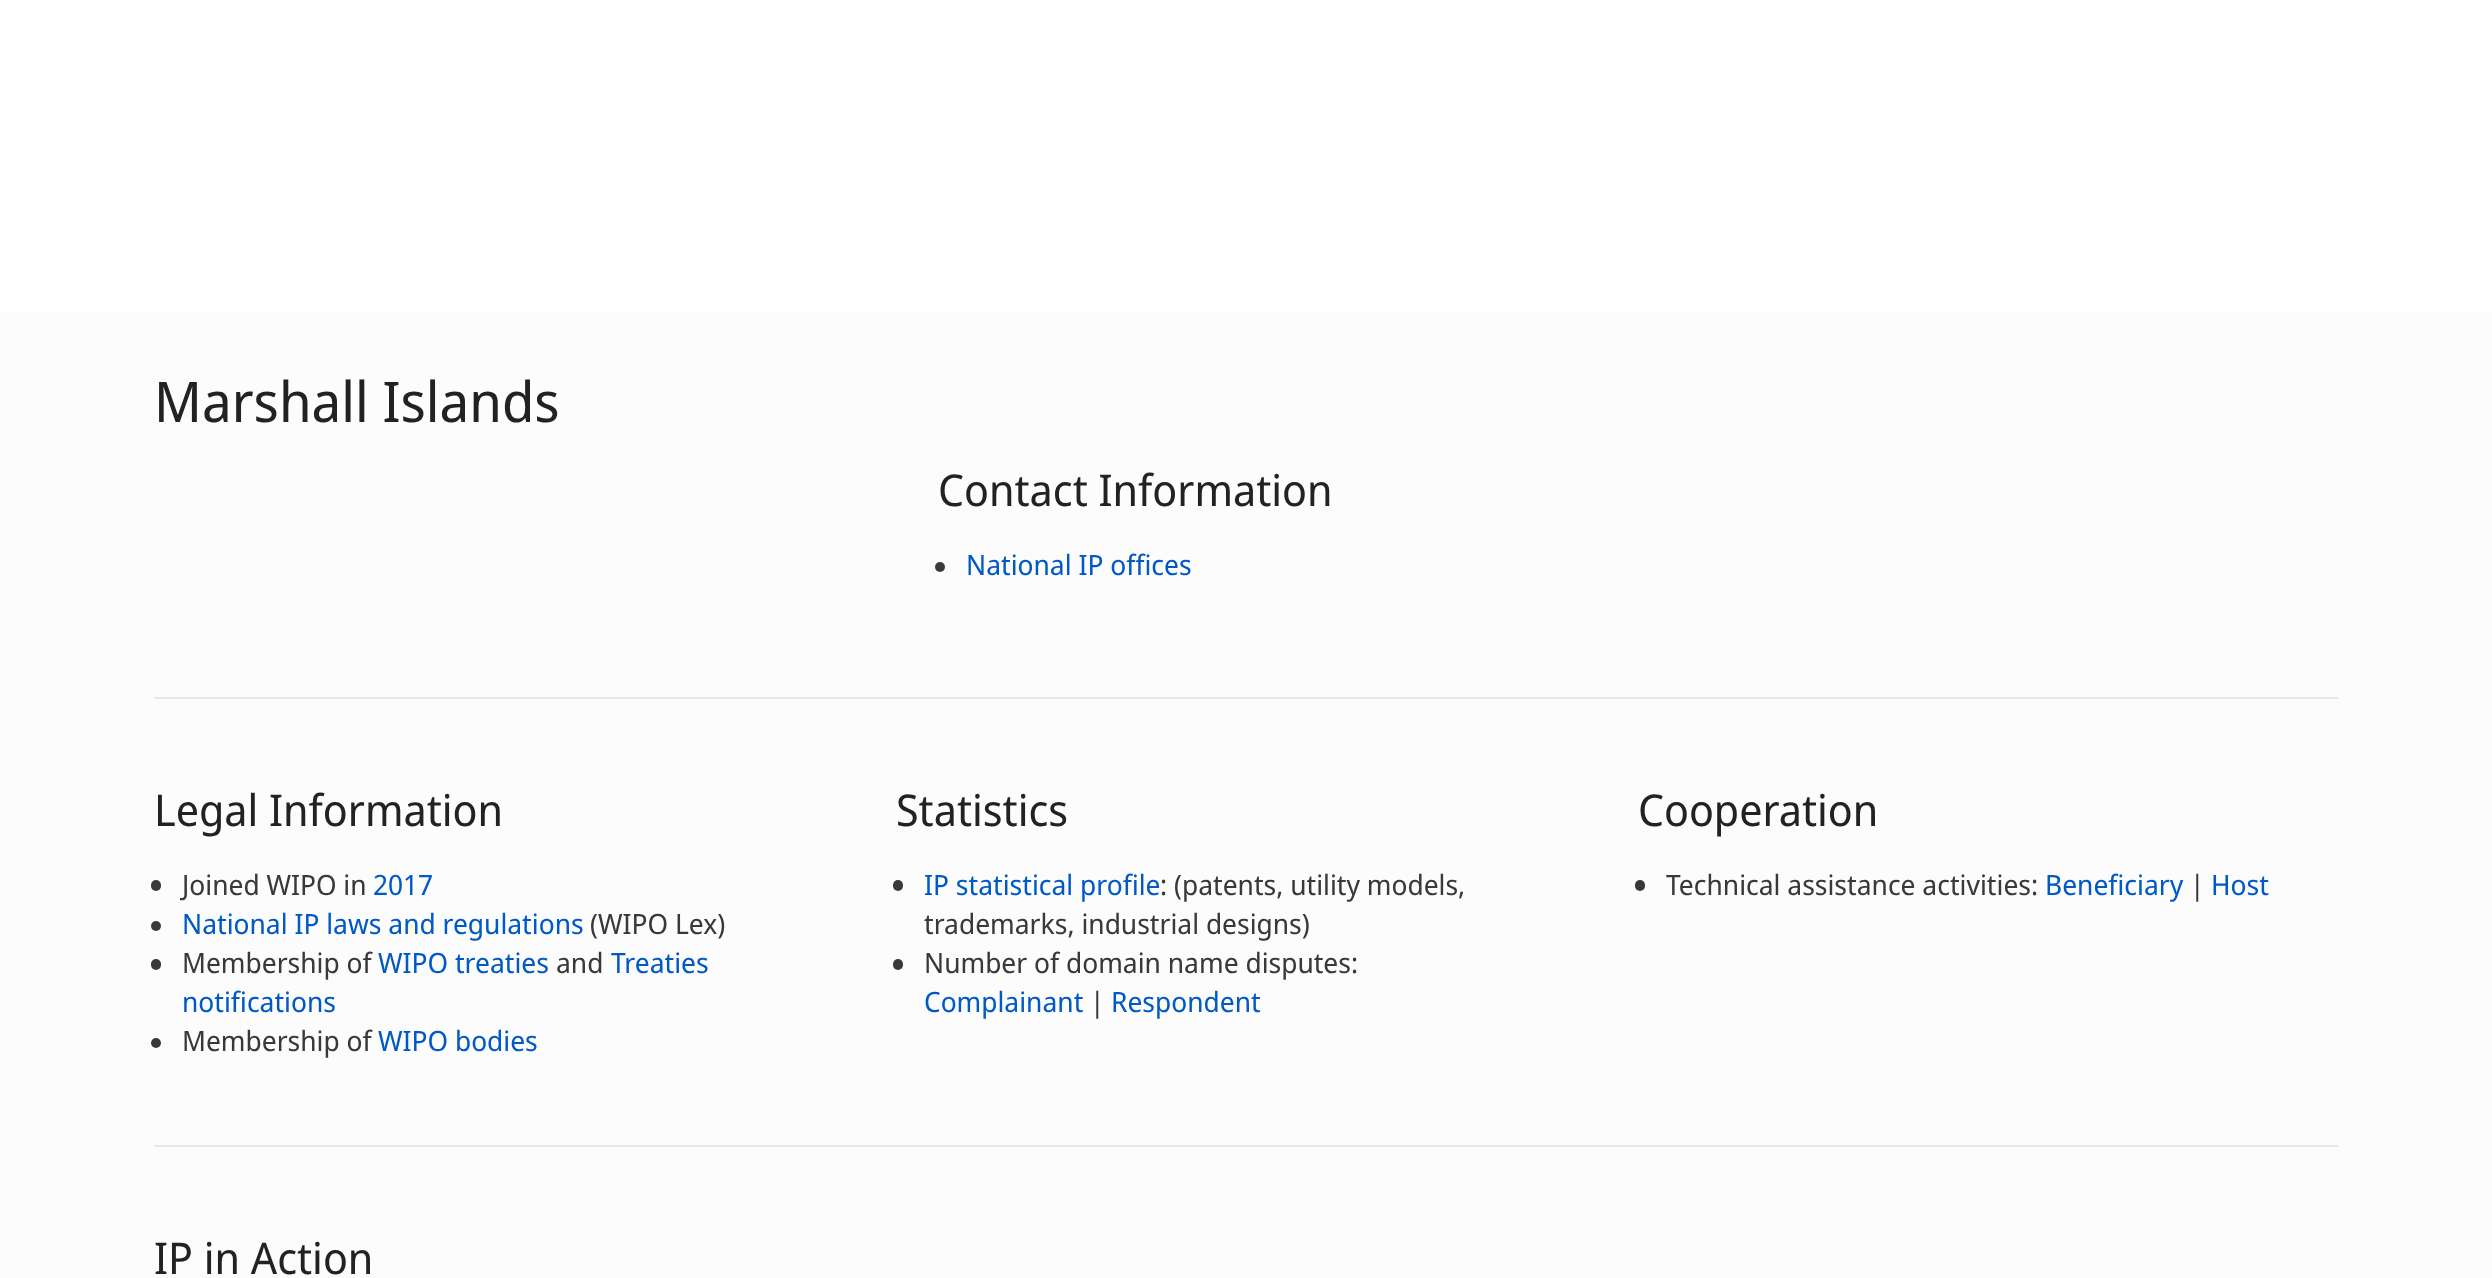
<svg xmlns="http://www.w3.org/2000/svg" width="2492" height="1278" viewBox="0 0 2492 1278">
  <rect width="100%" height="100%" fill="#fcfcfc"/>
  <rect x="0" y="0" width="2492" height="312" fill="#ffffff"/>
  <text x="154" y="422" font-family="Noto Sans Display" font-size="56" fill="#222222">Marshall Islands</text>
  <text x="938" y="506" font-family="Noto Sans Display" font-size="43.75" fill="#222222">Contact Information</text>
  <circle cx="940" cy="567" r="5" fill="#393939"/>
  <text x="966" y="575" font-family="Noto Sans Display" font-size="28" fill="#0059c6">National IP offices</text>
  <rect x="154" y="697" width="2184" height="2" fill="#e6e6e6"/>
  <text x="154" y="826" font-family="Noto Sans Display" font-size="43.75" fill="#222222">Legal Information</text>
  <rect x="151" y="880" width="10" height="11" rx="5" fill="#393939"/>
  <text x="182" y="895" font-family="Noto Sans Display" font-size="28" fill="#393939">Joined WIPO in</text>
  <text x="373" y="895" font-family="Noto Sans Display" font-size="28" fill="#0059c6">2017</text>
  <circle cx="156" cy="926" r="5" fill="#393939"/>
  <text x="182" y="934" font-family="Noto Sans Display" font-size="28" fill="#0059c6">National IP laws and regulations</text>
  <text x="590" y="934" font-family="Noto Sans Display" font-size="28" fill="#393939">(WIPO Lex)</text>
  <rect x="151" y="959" width="10" height="11" rx="5" fill="#393939"/>
  <text x="182" y="973" font-family="Noto Sans Display" font-size="28" fill="#393939">Membership of</text>
  <text x="378" y="973" font-family="Noto Sans Display" font-size="28" fill="#0059c6">WIPO treaties</text>
  <text x="556" y="973" font-family="Noto Sans Display" font-size="28" fill="#393939">and</text>
  <text x="611" y="973" font-family="Noto Sans Display" font-size="28" fill="#0059c6">Treaties</text>
  <text x="182" y="1012" font-family="Noto Sans Display" font-size="28" fill="#0059c6">notifications</text>
  <circle cx="156" cy="1043" r="5" fill="#393939"/>
  <text x="182" y="1051" font-family="Noto Sans Display" font-size="28" fill="#393939">Membership of</text>
  <text x="378" y="1051" font-family="Noto Sans Display" font-size="28" fill="#0059c6">WIPO bodies</text>
  <text x="896" y="826" font-family="Noto Sans Display" font-size="43.75" fill="#222222">Statistics</text>
  <rect x="893" y="880" width="10" height="11" rx="5" fill="#393939"/>
  <text x="924" y="895" font-family="Noto Sans Display" font-size="28" fill="#0059c6">IP statistical profile</text>
  <text x="1160" y="895" font-family="Noto Sans Display" font-size="28" fill="#393939">: (patents, utility models,</text>
  <text x="924" y="934" font-family="Noto Sans Display" font-size="28" fill="#393939">trademarks, industrial designs)</text>
  <rect x="893" y="959" width="10" height="11" rx="5" fill="#393939"/>
  <text x="924" y="973" font-family="Noto Sans Display" font-size="28" fill="#393939">Number of domain name disputes:</text>
  <text x="924" y="1012" font-family="Noto Sans Display" font-size="28" fill="#0059c6">Complainant</text>
  <text x="1090" y="1012" font-family="Noto Sans Display" font-size="28" fill="#393939">|</text>
  <text x="1111" y="1012" font-family="Noto Sans Display" font-size="28" fill="#0059c6">Respondent</text>
  <text x="1638" y="826" font-family="Noto Sans Display" font-size="43.75" fill="#222222">Cooperation</text>
  <rect x="1635" y="880" width="10" height="11" rx="5" fill="#393939"/>
  <text x="1666" y="895" font-family="Noto Sans Display" font-size="28" fill="#393939">Technical assistance activities:</text>
  <text x="2045" y="895" font-family="Noto Sans Display" font-size="28" fill="#0059c6">Beneficiary</text>
  <text x="2190" y="895" font-family="Noto Sans Display" font-size="28" fill="#393939">|</text>
  <text x="2211" y="895" font-family="Noto Sans Display" font-size="28" fill="#0059c6">Host</text>
  <rect x="154" y="1145" width="2184" height="2" fill="#e6e6e6"/>
  <text x="154" y="1274" font-family="Noto Sans Display" font-size="43.75" fill="#222222">IP in Action</text>
</svg>
